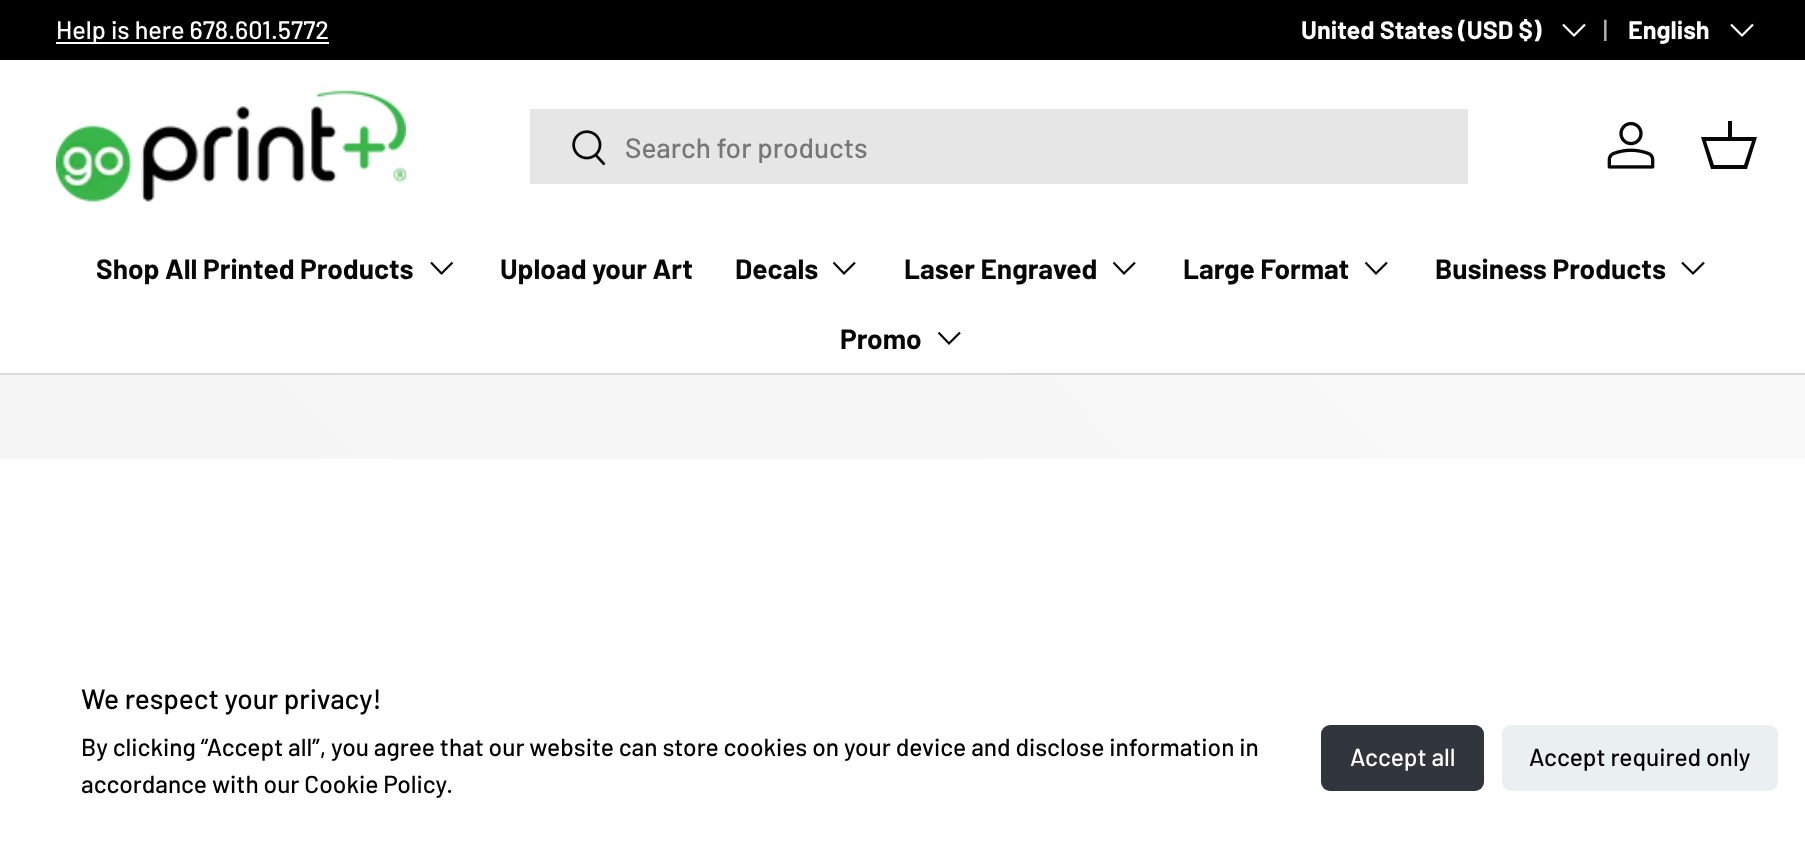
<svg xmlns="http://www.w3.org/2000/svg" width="1805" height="862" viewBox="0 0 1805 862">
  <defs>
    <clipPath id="clip1"><rect x="625" y="130" width="819" height="33"/></clipPath>
    <linearGradient id="g1" gradientUnits="userSpaceOnUse" x1="415" y1="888" x2="1391" y2="-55"><stop offset="0.13" stop-color="#f5f5f5"/><stop offset="0.86" stop-color="#f9f9f9"/></linearGradient>
  </defs>
  <rect width="100%" height="100%" fill="#ffffff"/>
  <rect x="0" y="0" width="1805" height="60" fill="#000000"/>
  <rect x="56" y="42" width="273" height="2" fill="#ffffff"/>
  <text x="56" y="39" font-family="Barlow" font-size="25.25" font-weight="500" fill="#ffffff">Help is here 678.601.5772</text>
  <text x="1301" y="39" font-family="Barlow" font-size="25.25" font-weight="bold" fill="#ffffff">United States (USD $)</text>
  <path d="M1585 24.5L1574 35.5L1563 24.5" fill="none" stroke="#ffffff" stroke-width="2.2"/>
  <text x="1603" y="39" font-family="Barlow" font-size="25.25" font-weight="500" fill="#b3b3b3">|</text>
  <text x="1628" y="39" font-family="Barlow" font-size="25.25" font-weight="bold" fill="#ffffff">English</text>
  <path d="M1753 24.5L1742 35.5L1731 24.5" fill="none" stroke="#ffffff" stroke-width="2.2"/>
  <rect x="0" y="373" width="1805" height="2" fill="#dadada"/>
  <image x="56" y="90" width="350" height="112" href="img1.png"/>
  <rect x="530" y="109" width="938" height="75" fill="#e6e6e6"/>
  <image x="572" y="130" width="34" height="36" href="img2.png"/>
  <g clip-path="url(#clip1)">
    <text x="625" y="158" font-family="Barlow" font-size="28" font-weight="500" fill="#777777">Search for products</text>
  </g>
  <image x="1607" y="121" width="48" height="48" href="img3.png"/>
  <path d="M1728 137V121H1732V137H1757L1747 169H1711L1701 137ZM1706 141L1714 165H1744L1752 141Z" fill="#070707"/>
  <text x="96" y="279" font-family="Barlow" font-size="28" font-weight="bold" fill="#070707">Shop All Printed Products</text>
  <path d="M452.5 262.5L441.5 273.5L431 262.5" fill="none" stroke="#070707" stroke-width="2.2"/>
  <text x="500" y="279" font-family="Barlow" font-size="28" font-weight="bold" fill="#070707">Upload your Art</text>
  <text x="735" y="279" font-family="Barlow" font-size="28" font-weight="bold" fill="#070707">Decals</text>
  <path d="M855 262.5L844 273.5L833.5 262.5" fill="none" stroke="#070707" stroke-width="2.2"/>
  <text x="904" y="279" font-family="Barlow" font-size="28" font-weight="bold" fill="#070707">Laser Engraved</text>
  <path d="M1135 262.5L1124 273.5L1113.5 262.5" fill="none" stroke="#070707" stroke-width="2.2"/>
  <text x="1183" y="279" font-family="Barlow" font-size="28" font-weight="bold" fill="#070707">Large Format</text>
  <path d="M1387 262.5L1376 273.5L1365.5 262.5" fill="none" stroke="#070707" stroke-width="2.2"/>
  <text x="1435" y="279" font-family="Barlow" font-size="28" font-weight="bold" fill="#070707">Business Products</text>
  <path d="M1704 262.5L1693 273.5L1682 262.5" fill="none" stroke="#070707" stroke-width="2.2"/>
  <text x="840" y="349" font-family="Barlow" font-size="28" font-weight="bold" fill="#070707">Promo</text>
  <path d="M960 332.5L949 343.5L938.5 332.5" fill="none" stroke="#070707" stroke-width="2.2"/>
  <rect x="0" y="375" width="1805" height="84" fill="url(#g1)"/>
  <text x="81" y="709" font-family="Barlow" font-size="28" font-weight="500" fill="#000000">We respect your privacy!</text>
  <text x="81" y="756" font-family="Barlow" font-size="24.5" font-weight="500" fill="#000000">By clicking “Accept all”, you agree that our website can store cookies on your device and disclose information in</text>
  <text x="81" y="793" font-family="Barlow" font-size="24.5" font-weight="500" fill="#000000">accordance with our Cookie Policy.</text>
  <rect x="1321" y="725" width="163" height="66" rx="9" fill="#30363c"/>
  <text x="1350" y="766" font-family="Barlow" font-size="24.5" font-weight="500" fill="#ffffff">Accept all</text>
  <rect x="1502" y="725" width="276" height="66" rx="9" fill="#eaeff2"/>
  <text x="1529" y="766" font-family="Barlow" font-size="24.5" font-weight="500" fill="#000000">Accept required only</text>
</svg>
